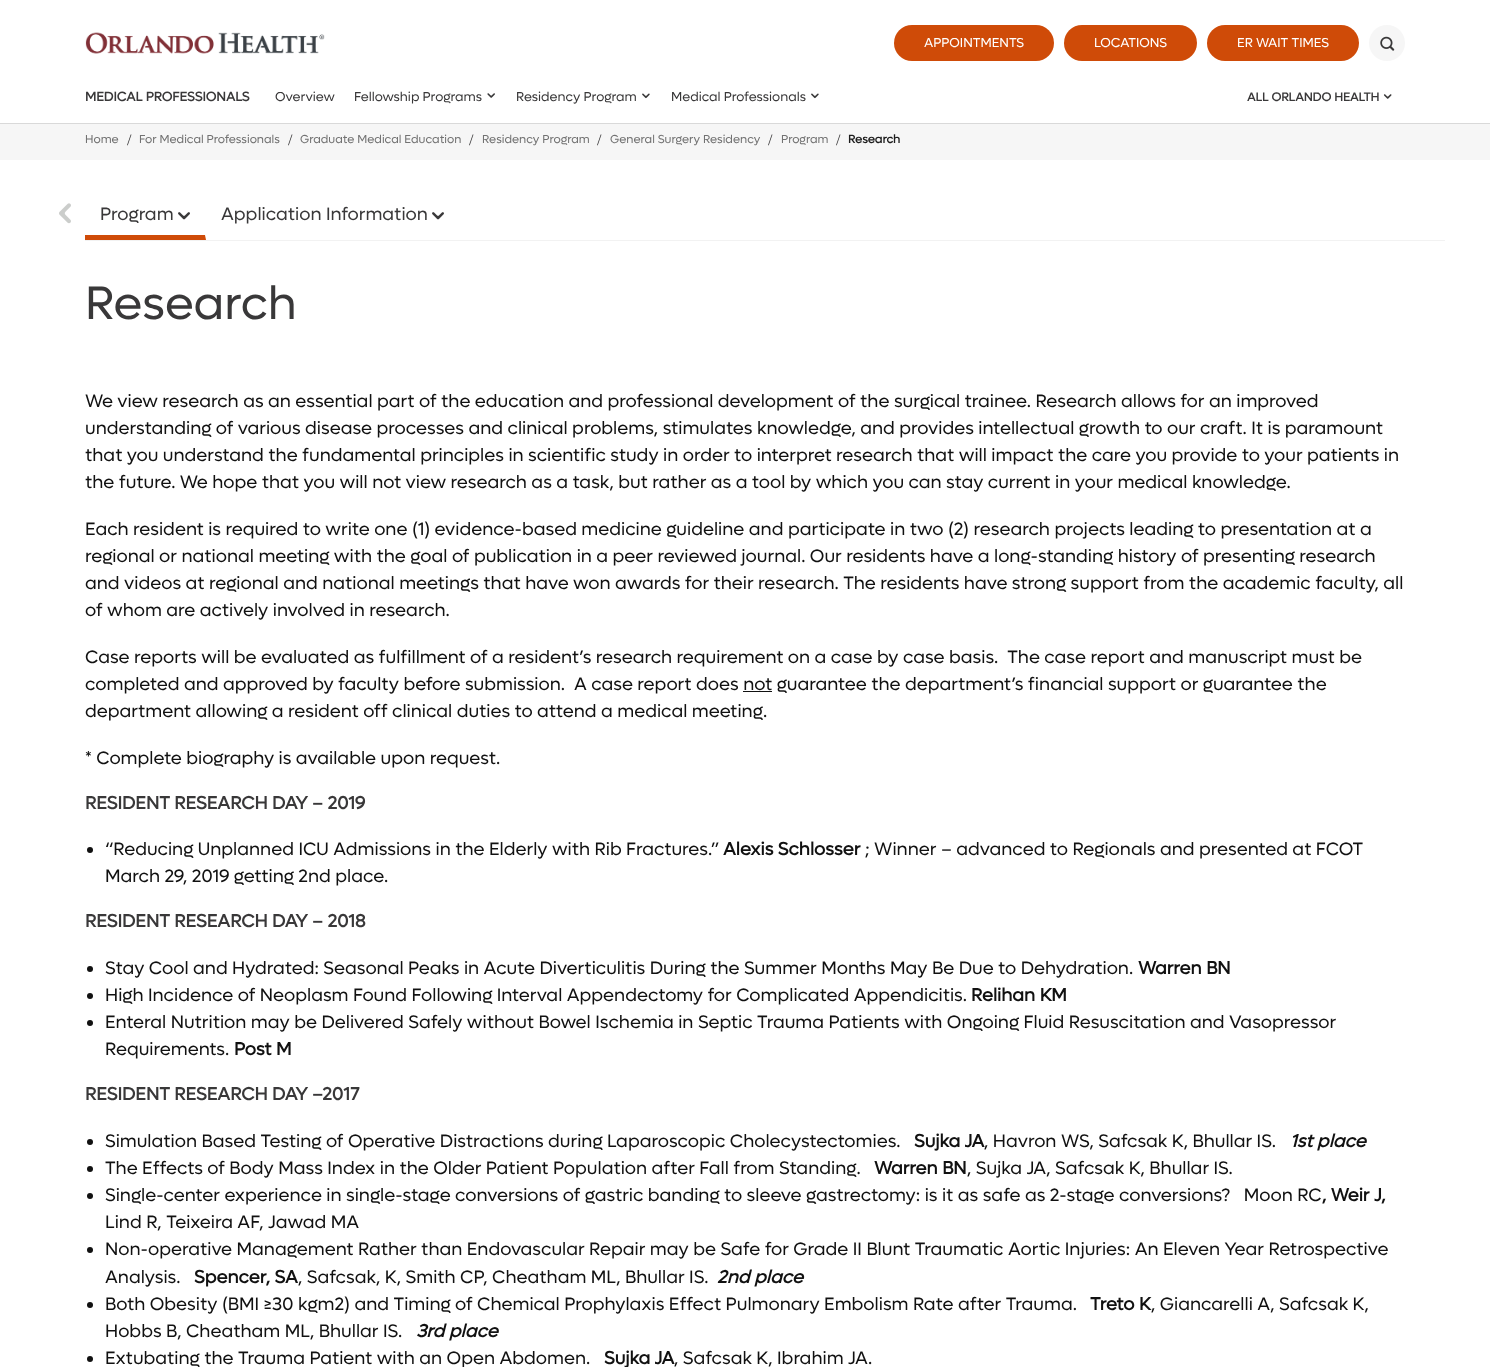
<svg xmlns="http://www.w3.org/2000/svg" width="1490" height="1367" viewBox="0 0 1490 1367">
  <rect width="100%" height="100%" fill="#ffffff"/>
  <rect x="0" y="123" width="1490" height="1" fill="#d9d9d9"/>
  <image x="85" y="32" width="240" height="22" href="img1.png"/>
  <rect x="894" y="25" width="160" height="36" rx="18" fill="#cf4b08"/>
  <text x="924" y="47" font-family="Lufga" font-size="13" fill="#ffffff">APPOINTMENTS</text>
  <rect x="1064" y="25" width="133" height="36" rx="18" fill="#cf4b08"/>
  <text x="1094" y="47" font-family="Lufga" font-size="13" fill="#ffffff">LOCATIONS</text>
  <rect x="1207" y="25" width="152" height="36" rx="18" fill="#cf4b08"/>
  <text x="1237" y="47" font-family="Lufga" font-size="13" fill="#ffffff">ER WAIT TIMES</text>
  <circle cx="1387" cy="43" r="18" fill="#f6f6f6"/>
  <image x="1380" y="36" width="15" height="15" href="img2.png"/>
  <text x="85" y="101" font-family="Lufga" font-size="13" font-weight="bold" fill="#393839">MEDICAL PROFESSIONALS</text>
  <text x="275" y="101" font-family="Lufga" font-size="13" fill="#393839">Overview</text>
  <text x="354" y="101" font-family="Lufga" font-size="13" fill="#393839">Fellowship Programs</text>
  <image x="487" y="93" width="8" height="5" href="img3.png"/>
  <text x="516" y="101" font-family="Lufga" font-size="13" fill="#393839">Residency Program</text>
  <image x="642" y="93" width="8" height="6" href="img4.png"/>
  <text x="671" y="101" font-family="Lufga" font-size="13" fill="#393839">Medical Professionals</text>
  <image x="811" y="93" width="8" height="6" href="img5.png"/>
  <text x="1247" y="101" font-family="Lufga" font-size="12" font-weight="bold" fill="#393839">ALL ORLANDO HEALTH</text>
  <image x="1383" y="94" width="9" height="5" href="img6.png"/>
  <rect x="0" y="124" width="1490" height="36" fill="#f6f6f6"/>
  <text x="85" y="143" font-family="Lufga" font-size="11.6" fill="#727272">Home</text>
  <text x="127" y="145" font-family="Liberation Serif" font-size="16" fill="#393839">/</text>
  <text x="139" y="143" font-family="Lufga" font-size="11.6" fill="#727272">For Medical Professionals</text>
  <text x="288" y="145" font-family="Liberation Serif" font-size="16" fill="#393839">/</text>
  <text x="300" y="143" font-family="Lufga" font-size="11.6" fill="#727272">Graduate Medical Education</text>
  <text x="469" y="145" font-family="Liberation Serif" font-size="16" fill="#393839">/</text>
  <text x="482" y="143" font-family="Lufga" font-size="11.6" fill="#727272">Residency Program</text>
  <text x="597" y="145" font-family="Liberation Serif" font-size="16" fill="#393839">/</text>
  <text x="610" y="143" font-family="Lufga" font-size="11.6" fill="#727272">General Surgery Residency</text>
  <text x="768" y="145" font-family="Liberation Serif" font-size="16" fill="#393839">/</text>
  <text x="781" y="143" font-family="Lufga" font-size="11.6" fill="#727272">Program</text>
  <text x="836" y="145" font-family="Liberation Serif" font-size="16" fill="#393839">/</text>
  <text x="848" y="143" font-family="Lufga" font-size="11.6" font-weight="bold" fill="#1c1c1c">Research</text>
  <rect x="85" y="240" width="1360" height="1" fill="#f2f2f2"/>
  <image x="59" y="203" width="12" height="21" href="img7.png"/>
  <path d="M206 240H85V235H205Z" fill="#cf4b08"/>
  <text x="100" y="220" font-family="Lufga" font-size="18" fill="#393839">Program</text>
  <image x="178" y="212" width="12" height="8" href="img8.png"/>
  <text x="221" y="220" font-family="Lufga" font-size="18" fill="#393839">Application Information</text>
  <image x="432" y="212" width="12" height="8" href="img8.png"/>
  <text x="85" y="319" font-family="Lufga" font-size="47" fill="#393839">Research</text>
  <text x="85" y="407" font-family="Lufga" font-size="18" fill="#111111">We view research as an essential part of the education and professional development of the surgical trainee. Research allows for an improved</text>
  <text x="85" y="434" font-family="Lufga" font-size="18" fill="#111111">understanding of various disease processes and clinical problems, stimulates knowledge, and provides intellectual growth to our craft. It is paramount</text>
  <text x="85" y="461" font-family="Lufga" font-size="18" fill="#111111">that you understand the fundamental principles in scientific study in order to interpret research that will impact the care you provide to your patients in</text>
  <text x="85" y="488" font-family="Lufga" font-size="18" fill="#111111">the future. We hope that you will not view research as a task, but rather as a tool by which you can stay current in your medical knowledge.</text>
  <text x="85" y="535" font-family="Lufga" font-size="18" fill="#111111">Each resident is required to write one (1) evidence-based medicine guideline and participate in two (2) research projects leading to presentation at a</text>
  <text x="85" y="562" font-family="Lufga" font-size="18" fill="#111111">regional or national meeting with the goal of publication in a peer reviewed journal. Our residents have a long-standing history of presenting research</text>
  <text x="85" y="589" font-family="Lufga" font-size="18" fill="#111111">and videos at regional and national meetings that have won awards for their research. The residents have strong support from the academic faculty, all</text>
  <text x="85" y="616" font-family="Lufga" font-size="18" fill="#111111">of whom are actively involved in research.</text>
  <text x="85" y="663" font-family="Lufga" font-size="18" fill="#111111" xml:space="preserve">Case reports will be evaluated as fulfillment of a resident’s research requirement on a case by case basis.  The case report and manuscript must be</text>
  <text x="85" y="690" font-family="Lufga" font-size="18" fill="#111111" xml:space="preserve">completed and approved by faculty before submission.  A case report does not guarantee the department’s financial support or guarantee the</text>
  <rect x="743" y="691" width="29" height="1" fill="#111111"/>
  <text x="85" y="717" font-family="Lufga" font-size="18" fill="#111111">department allowing a resident off clinical duties to attend a medical meeting.</text>
  <text x="85" y="764" font-family="Lufga" font-size="18" fill="#111111">* Complete biography is available upon request.</text>
  <text x="85" y="809" font-family="Lufga" font-size="18" font-weight="bold" fill="#393839">RESIDENT RESEARCH DAY – 2019</text>
  <circle cx="90" cy="850" r="3" fill="#111111"/>
  <text x="105" y="855" font-family="Lufga" font-size="18" fill="#111111">“Reducing Unplanned ICU Admissions in the Elderly with Rib Fractures.”</text>
  <text x="723" y="855" font-family="Lufga" font-size="18" font-weight="bold" fill="#111111">Alexis Schlosser</text>
  <text x="865" y="855" font-family="Lufga" font-size="18" fill="#111111">; Winner – advanced to Regionals and presented at FCOT</text>
  <text x="105" y="882" font-family="Lufga" font-size="18" fill="#111111">March 29, 2019 getting 2nd place.</text>
  <text x="85" y="927" font-family="Lufga" font-size="18" font-weight="bold" fill="#393839">RESIDENT RESEARCH DAY – 2018</text>
  <circle cx="90" cy="969" r="3" fill="#111111"/>
  <text x="105" y="974" font-family="Lufga" font-size="18" fill="#111111">Stay Cool and Hydrated: Seasonal Peaks in Acute Diverticulitis During the Summer Months May Be Due to Dehydration.</text>
  <text x="1138" y="974" font-family="Lufga" font-size="18" font-weight="bold" fill="#111111">Warren BN</text>
  <circle cx="90" cy="996" r="3" fill="#111111"/>
  <text x="105" y="1001" font-family="Lufga" font-size="18" fill="#111111">High Incidence of Neoplasm Found Following Interval Appendectomy for Complicated Appendicitis.</text>
  <text x="971" y="1001" font-family="Lufga" font-size="18" font-weight="bold" fill="#111111">Relihan KM</text>
  <circle cx="90" cy="1023" r="3" fill="#111111"/>
  <text x="105" y="1028" font-family="Lufga" font-size="18" fill="#111111">Enteral Nutrition may be Delivered Safely without Bowel Ischemia in Septic Trauma Patients with Ongoing Fluid Resuscitation and Vasopressor</text>
  <text x="105" y="1055" font-family="Lufga" font-size="18" fill="#111111">Requirements.</text>
  <text x="234" y="1055" font-family="Lufga" font-size="18" font-weight="bold" fill="#111111">Post M</text>
  <text x="85" y="1100" font-family="Lufga" font-size="18" font-weight="bold" fill="#393839">RESIDENT RESEARCH DAY –2017</text>
  <circle cx="90" cy="1142" r="3" fill="#111111"/>
  <text x="105" y="1147" font-family="Lufga" font-size="18" fill="#111111">Simulation Based Testing of Operative Distractions during Laparoscopic Cholecystectomies.</text>
  <text x="914" y="1147" font-family="Lufga" font-size="18" font-weight="bold" fill="#111111">Sujka JA</text>
  <text x="984" y="1147" font-family="Lufga" font-size="18" fill="#111111">, Havron WS, Safcsak K, Bhullar IS.</text>
  <text x="1290" y="1147" font-family="Lufga" font-size="18" font-weight="bold" font-style="italic" fill="#111111">1st place</text>
  <circle cx="90" cy="1169" r="3" fill="#111111"/>
  <text x="105" y="1174" font-family="Lufga" font-size="18" fill="#111111">The Effects of Body Mass Index in the Older Patient Population after Fall from Standing.</text>
  <text x="874" y="1174" font-family="Lufga" font-size="18" font-weight="bold" fill="#111111">Warren BN</text>
  <text x="967" y="1174" font-family="Lufga" font-size="18" fill="#111111">, Sujka JA, Safcsak K, Bhullar IS.</text>
  <circle cx="90" cy="1196" r="3" fill="#111111"/>
  <text x="105" y="1201" font-family="Lufga" font-size="18" fill="#111111" xml:space="preserve">Single-center experience in single-stage conversions of gastric banding to sleeve gastrectomy: is it as safe as 2-stage conversions?   Moon RC</text>
  <text x="1322" y="1201" font-family="Lufga" font-size="18" font-weight="bold" fill="#111111">, Weir J,</text>
  <text x="105" y="1228" font-family="Lufga" font-size="18" fill="#111111">Lind R, Teixeira AF, Jawad MA</text>
  <circle cx="90" cy="1250" r="3" fill="#111111"/>
  <text x="105" y="1255" font-family="Lufga" font-size="18" fill="#111111">Non-operative Management Rather than Endovascular Repair may be Safe for Grade II Blunt Traumatic Aortic Injuries: An Eleven Year Retrospective</text>
  <text x="105" y="1283" font-family="Lufga" font-size="18" fill="#111111">Analysis.</text>
  <text x="194" y="1283" font-family="Lufga" font-size="18" font-weight="bold" fill="#111111">Spencer, SA</text>
  <text x="298" y="1283" font-family="Lufga" font-size="18" fill="#111111">, Safcsak, K, Smith CP, Cheatham ML, Bhullar IS.</text>
  <text x="717" y="1283" font-family="Lufga" font-size="18" font-weight="bold" font-style="italic" fill="#111111">2nd place</text>
  <circle cx="90" cy="1305" r="3" fill="#111111"/>
  <text x="105" y="1310" font-family="Lufga" font-size="18" fill="#111111">Both Obesity (BMI ≥30 kgm2) and Timing of Chemical Prophylaxis Effect Pulmonary Embolism Rate after Trauma.</text>
  <text x="1090" y="1310" font-family="Lufga" font-size="18" font-weight="bold" fill="#111111">Treto K</text>
  <text x="1151" y="1310" font-family="Lufga" font-size="18" fill="#111111">, Giancarelli A, Safcsak K,</text>
  <text x="105" y="1337" font-family="Lufga" font-size="18" fill="#111111">Hobbs B, Cheatham ML, Bhullar IS.</text>
  <text x="416" y="1337" font-family="Lufga" font-size="18" font-weight="bold" font-style="italic" fill="#111111">3rd place</text>
  <circle cx="90" cy="1359" r="3" fill="#111111"/>
  <text x="105" y="1364" font-family="Lufga" font-size="18" fill="#111111">Extubating the Trauma Patient with an Open Abdomen.</text>
  <text x="604" y="1364" font-family="Lufga" font-size="18" font-weight="bold" fill="#111111">Sujka JA</text>
  <text x="674" y="1364" font-family="Lufga" font-size="18" fill="#111111">, Safcsak K, Ibrahim JA.</text>
</svg>
